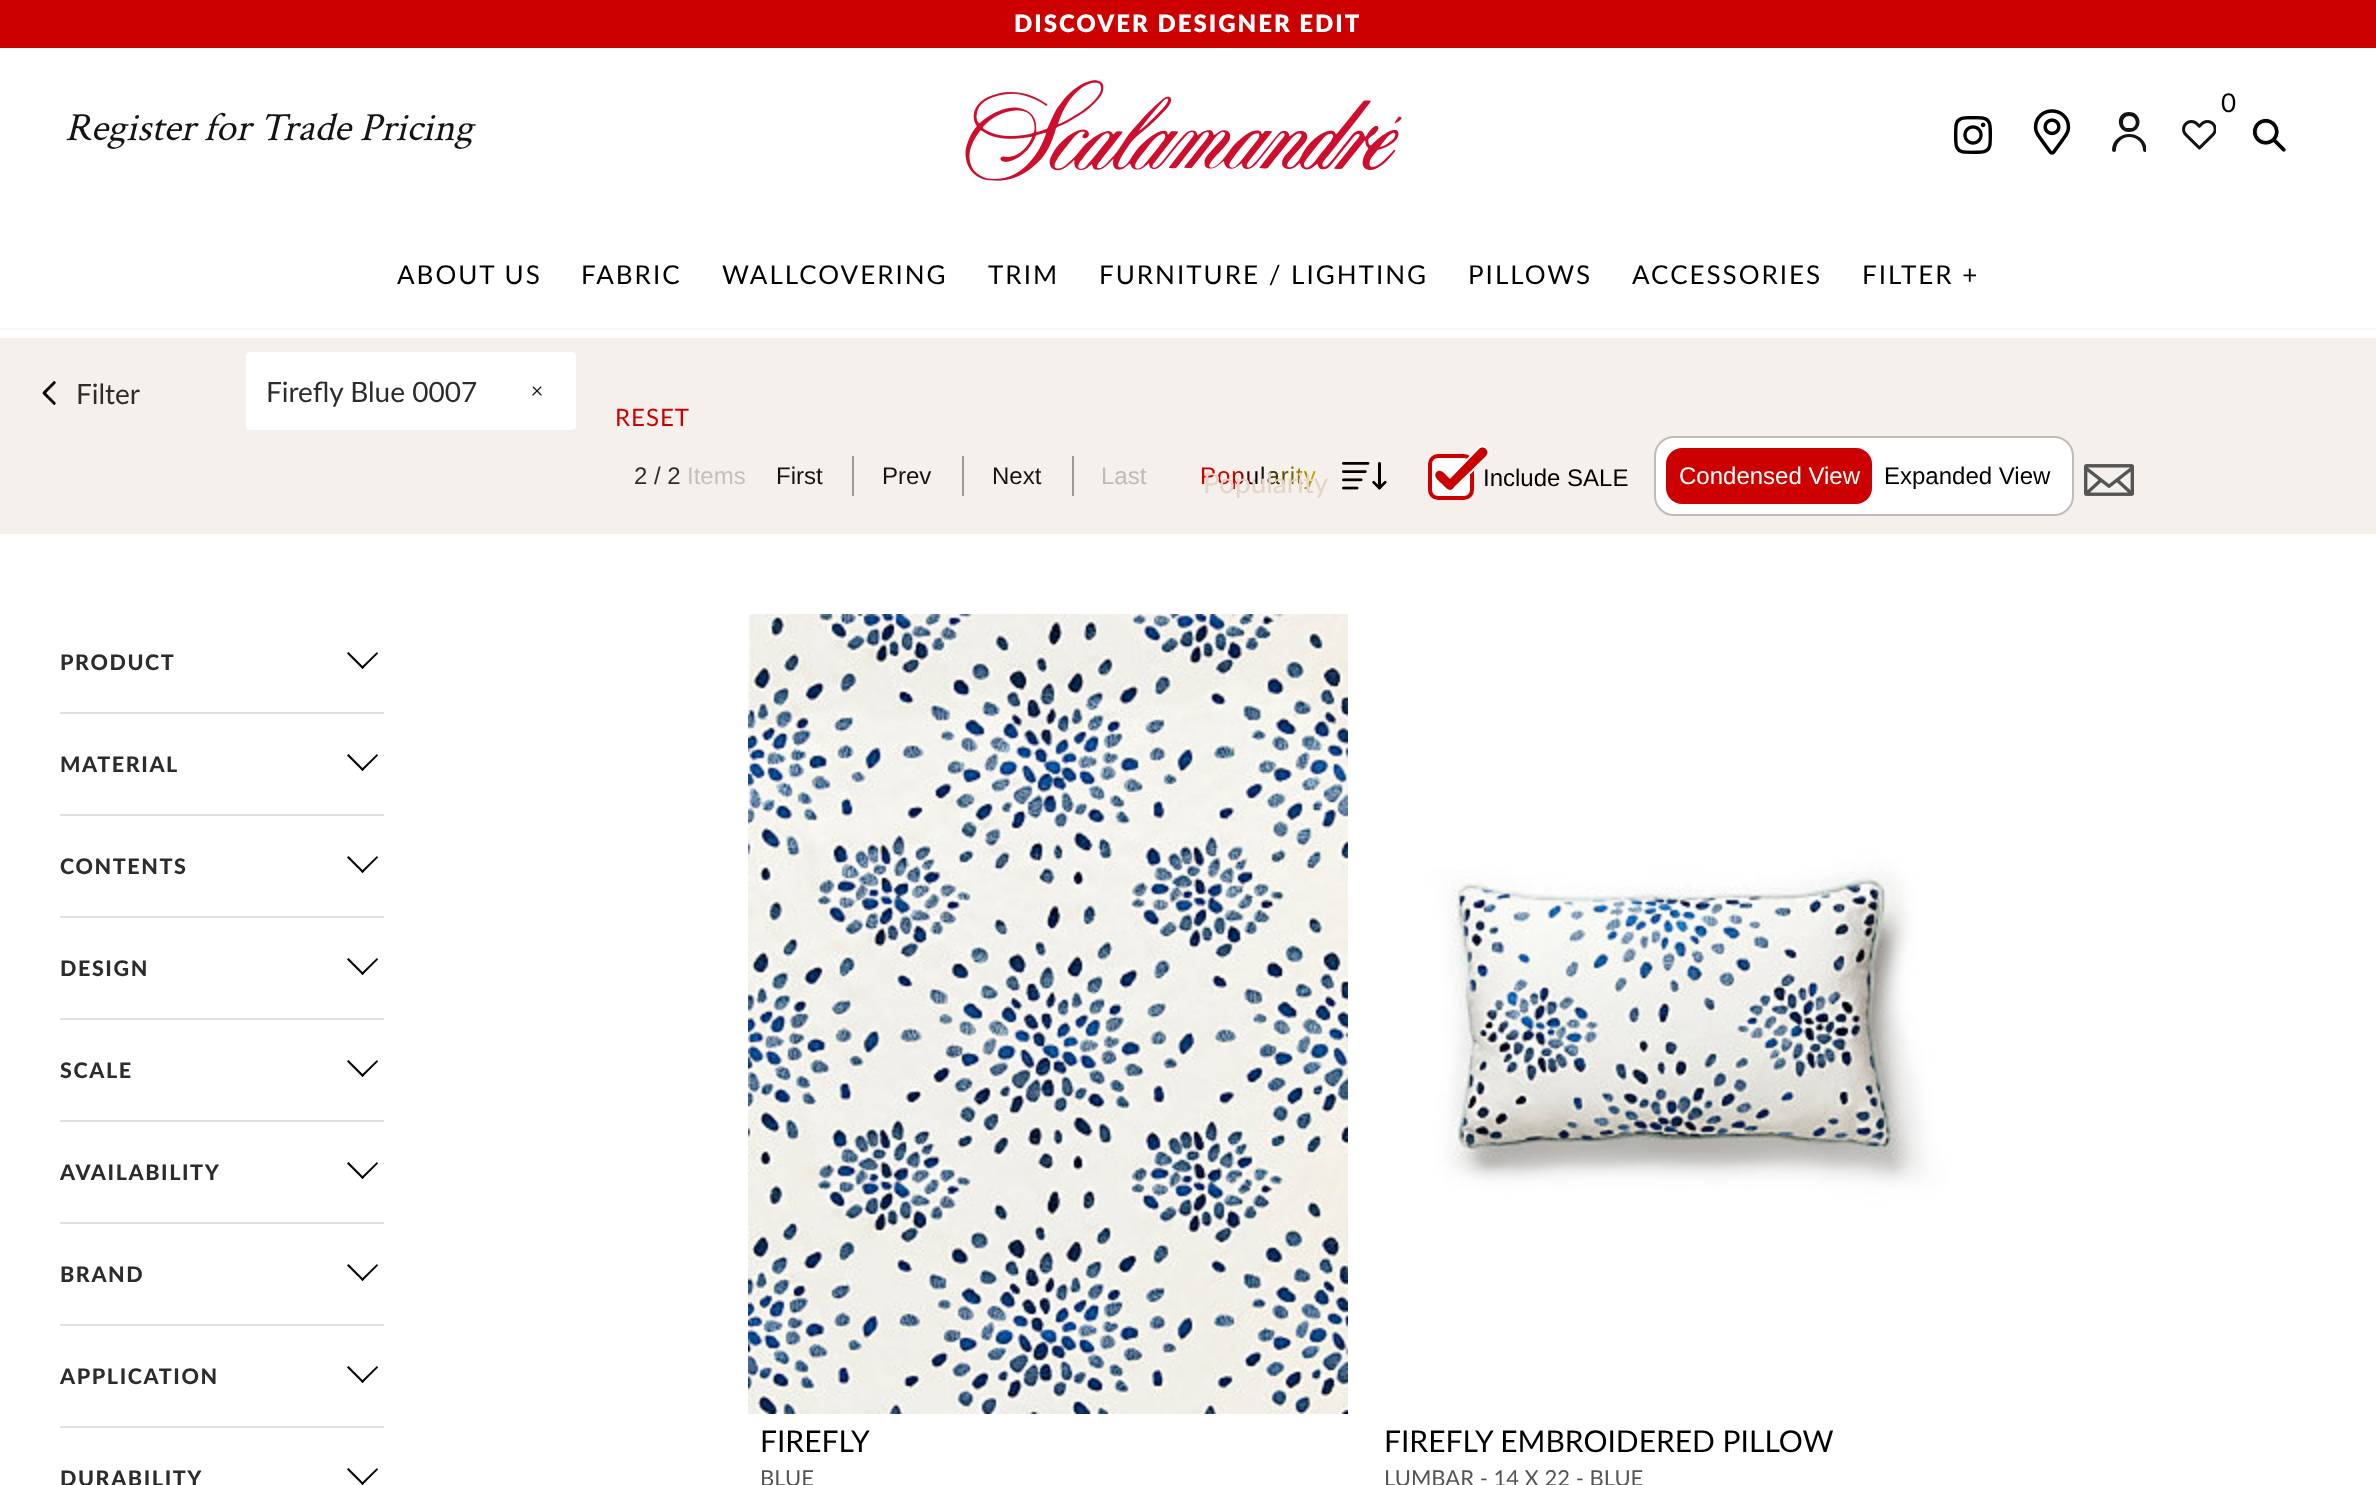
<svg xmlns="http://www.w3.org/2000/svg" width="2376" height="1485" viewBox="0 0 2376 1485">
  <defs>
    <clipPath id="clip1"><rect x="2112" y="112" width="34" height="40"/></clipPath>
    <linearGradient id="g1" gradientUnits="userSpaceOnUse" x1="1200" y1="481" x2="1387" y2="481"><stop offset="0.2" stop-color="#cc0000"/><stop offset="0.3" stop-color="#000000"/><stop offset="0.7" stop-color="#ffd700"/><stop offset="0.8" stop-color="#ff6600"/></linearGradient>
  </defs>
  <rect width="100%" height="100%" fill="#ffffff"/>
  <rect x="0" y="0" width="2376" height="48" fill="#cc0000"/>
  <text x="1014" y="32" font-family="'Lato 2'" font-size="24" font-weight="900" letter-spacing="2" fill="#ffffff">DISCOVER DESIGNER EDIT</text>
  <image x="965" y="80" width="437" height="101" href="img1.png"/>
  <image x="2182" y="120" width="34" height="30" href="img2.png"/>
  <text x="2221" y="112" font-family="Lato" font-size="26" fill="#000000">0</text>
  <image x="1954" y="116" width="38" height="38" href="img3.png"/>
  <image x="2033" y="109" width="38" height="46" href="img4.png"/>
  <g clip-path="url(#clip1)">
    <path d="M2129 132C2143 132 2143 112 2129 112C2115 112 2116 132 2129 132ZM2129 128C2121 129 2121 116 2129 116C2138 116 2138 129 2129 128ZM2147 150C2146 141 2139 134 2129 134C2120 134 2112 141 2112 150C2112 151 2113 152 2114 152C2115 152 2116 151 2116 150C2116 143 2122 137 2129 137C2137 137 2143 143 2143 150C2143 151 2144 152 2145 152C2146 152 2147 151 2147 150Z" fill="#141414" fill-rule="evenodd"/>
  </g>
  <image x="2252" y="118" width="35" height="35" href="img5.png"/>
  <text x="65" y="140" font-family="Crimson Text" font-size="40" font-style="italic" fill="#141414">Register for Trade Pricing</text>
  <rect x="0" y="328" width="2376" height="2" fill="#f7f7f7"/>
  <text x="397" y="284" font-family="Lato" font-size="26" letter-spacing="2" fill="#000000">ABOUT US</text>
  <text x="581" y="284" font-family="Lato" font-size="26" letter-spacing="2" fill="#000000">FABRIC</text>
  <text x="722" y="284" font-family="Lato" font-size="26" letter-spacing="2" fill="#000000">WALLCOVERING</text>
  <text x="988" y="284" font-family="Lato" font-size="26" letter-spacing="2" fill="#000000">TRIM</text>
  <text x="1099" y="284" font-family="Lato" font-size="26" letter-spacing="2" fill="#000000">FURNITURE / LIGHTING</text>
  <text x="1468" y="284" font-family="Lato" font-size="26" letter-spacing="2" fill="#000000">PILLOWS</text>
  <text x="1632" y="284" font-family="Lato" font-size="26" letter-spacing="2" fill="#000000">ACCESSORIES</text>
  <text x="1862" y="284" font-family="Lato" font-size="26" letter-spacing="2" fill="#000000">FILTER +</text>
  <rect x="0" y="338" width="2376" height="196" fill="#f5f0eb"/>
  <image x="42" y="381" width="14" height="24" href="img6.png"/>
  <text x="76" y="404" font-family="Lato" font-size="28" fill="#2c2c2c">Filter</text>
  <rect x="246" y="352" width="330" height="78" rx="4" fill="#ffffff"/>
  <text x="266" y="402" font-family="Lato" font-size="28" fill="#2c2c2c">Firefly Blue 0007</text>
  <image x="532" y="386" width="10" height="10" href="img7.png"/>
  <text x="615" y="426" font-family="Lato" font-size="24" letter-spacing="1" fill="#cc0000">RESET</text>
  <text x="634" y="484" font-family="Liberation Sans" font-size="24" fill="#2c2c2c">2 / 2</text>
  <text x="687" y="484" font-family="Liberation Sans" font-size="24" fill="#c1c1c1">Items</text>
  <text x="776" y="484" font-family="Liberation Sans" font-size="24" fill="#141414">First</text>
  <rect x="852" y="456" width="2" height="40" fill="#999999"/>
  <text x="882" y="484" font-family="Liberation Sans" font-size="24" fill="#141414">Prev</text>
  <rect x="962" y="456" width="2" height="40" fill="#999999"/>
  <text x="992" y="484" font-family="Liberation Sans" font-size="24" fill="#141414">Next</text>
  <rect x="1072" y="456" width="2" height="40" fill="#999999"/>
  <text x="1101" y="484" font-family="Liberation Sans" font-size="24" fill="#bbbbbb">Last</text>
  <text x="1200" y="484" font-family="Liberation Sans" font-size="24" letter-spacing="1" fill="url(#g1)">Popularity</text>
  <image x="1342" y="462" width="45" height="28" href="img8.png"/>
  <text x="1203" y="493" font-family="Lato" font-size="28" fill="#e4d5c8">Popularity</text>
  <rect x="1430" y="456" width="42" height="42" rx="8" fill="#ffffff" stroke="#cc0000" stroke-width="4"/>
  <path d="M1446 489C1443.5 487 1443.5 483 1446 481L1478.5 448.5C1480.5 446 1484.5 446 1486.5 448.5C1489 450.5 1489 454.5 1486.5 456.5L1454 489C1452 491.5 1448 491.5 1446 489Z" fill="none" stroke="#ffffff" stroke-width="2.3"/>
  <path d="M1447 488C1445 486 1445 484 1447 482L1479 449C1481 447 1484 447 1486 449C1488 451 1488 454 1486 456L1453 488C1451 490 1449 490 1447 488Z" fill="#cc0000"/>
  <path d="M1436.5 472C1441 468 1445.5 474.5 1448 477C1450.5 479.5 1457 484 1453 488.5C1448.5 492.5 1444.5 486 1441.5 483.5C1439 481 1432.5 476.5 1436.5 472Z" fill="#cc0000"/>
  <text x="1483" y="486" font-family="Liberation Sans" font-size="24" fill="#000000">Include SALE</text>
  <rect x="1655" y="437" width="418" height="78" rx="19" fill="#ffffff" stroke="#c0baba" stroke-width="2"/>
  <rect x="1666" y="448" width="206" height="56" rx="16" fill="#cc0000"/>
  <text x="1679" y="484" font-family="Liberation Sans" font-size="24" fill="#ffffff">Condensed View</text>
  <text x="1884" y="484" font-family="Liberation Sans" font-size="24" fill="#000000">Expanded View</text>
  <image x="2084" y="464" width="50" height="32" href="img9.png"/>
  <rect x="60" y="712" width="324" height="2" fill="#e4dfda"/>
  <text x="60" y="670" font-family="Lato" font-size="21.5" font-weight="900" letter-spacing="1.6" fill="#2c2c2c">PRODUCT</text>
  <path d="M378 653.5L362.5 669L361 667.5L377 652Z" fill="#000000"/>
  <path d="M364 667.5L362.5 669L347 653.5L348.5 652Z" fill="#000000"/>
  <rect x="60" y="814" width="324" height="2" fill="#e4dfda"/>
  <text x="60" y="772" font-family="Lato" font-size="21.5" font-weight="900" letter-spacing="1.6" fill="#2c2c2c">MATERIAL</text>
  <path d="M378 755.5L362.5 771L361 769.5L377 754Z" fill="#000000"/>
  <path d="M364 769.5L362.5 771L347 755.5L348.5 754Z" fill="#000000"/>
  <rect x="60" y="916" width="324" height="2" fill="#e4dfda"/>
  <text x="60" y="874" font-family="Lato" font-size="21.5" font-weight="900" letter-spacing="1.6" fill="#2c2c2c">CONTENTS</text>
  <path d="M378 857.5L362.5 873L361 871.5L377 856Z" fill="#000000"/>
  <path d="M364 871.5L362.5 873L347 857.5L348.5 856Z" fill="#000000"/>
  <rect x="60" y="1018" width="324" height="2" fill="#e4dfda"/>
  <text x="60" y="976" font-family="Lato" font-size="21.5" font-weight="900" letter-spacing="1.6" fill="#2c2c2c">DESIGN</text>
  <path d="M378 959.5L362.5 975L361 973.5L377 958Z" fill="#000000"/>
  <path d="M364 973.5L362.5 975L347 959.5L348.5 958Z" fill="#000000"/>
  <rect x="60" y="1120" width="324" height="2" fill="#e4dfda"/>
  <text x="60" y="1078" font-family="Lato" font-size="21.5" font-weight="900" letter-spacing="1.6" fill="#2c2c2c">SCALE</text>
  <path d="M378 1061.5L362.5 1077L361 1075.5L377 1060Z" fill="#000000"/>
  <path d="M364 1075.5L362.5 1077L347 1061.5L348.5 1060Z" fill="#000000"/>
  <rect x="60" y="1222" width="324" height="2" fill="#e4dfda"/>
  <text x="60" y="1180" font-family="Lato" font-size="21.5" font-weight="900" letter-spacing="1.6" fill="#2c2c2c">AVAILABILITY</text>
  <path d="M378 1163.5L362.5 1179L361 1177.5L377 1162Z" fill="#000000"/>
  <path d="M364 1177.5L362.5 1179L347 1163.5L348.5 1162Z" fill="#000000"/>
  <rect x="60" y="1324" width="324" height="2" fill="#e4dfda"/>
  <text x="60" y="1282" font-family="Lato" font-size="21.5" font-weight="900" letter-spacing="1.6" fill="#2c2c2c">BRAND</text>
  <path d="M378 1265.5L362.5 1281L361 1279.5L377 1264Z" fill="#000000"/>
  <path d="M364 1279.5L362.5 1281L347 1265.5L348.5 1264Z" fill="#000000"/>
  <rect x="60" y="1426" width="324" height="2" fill="#e4dfda"/>
  <text x="60" y="1384" font-family="Lato" font-size="21.5" font-weight="900" letter-spacing="1.6" fill="#2c2c2c">APPLICATION</text>
  <path d="M378 1367.5L362.5 1383L361 1381.5L377 1366Z" fill="#000000"/>
  <path d="M364 1381.5L362.5 1383L347 1367.5L348.5 1366Z" fill="#000000"/>
  <text x="60" y="1486" font-family="Lato" font-size="21.5" font-weight="900" letter-spacing="1.6" fill="#2c2c2c">DURABILITY</text>
  <path d="M378 1469.5L362.5 1485L361 1483.5L377 1468Z" fill="#000000"/>
  <path d="M364 1483.5L362.5 1485L347 1469.5L348.5 1468Z" fill="#000000"/>
  <image x="748" y="614" width="600" height="800" href="img10.png"/>
  <text x="760" y="1452" font-family="Lato" font-size="30" fill="#000000">FIREFLY</text>
  <text x="760" y="1486" font-family="Lato" font-size="22" fill="#555555">BLUE</text>
  <image x="1372" y="614" width="600" height="646" href="img11.png"/>
  <text x="1384" y="1452" font-family="Lato" font-size="30" fill="#000000">FIREFLY EMBROIDERED PILLOW</text>
  <text x="1384" y="1486" font-family="Lato" font-size="22" fill="#555555">LUMBAR - 14 X 22 - BLUE</text>
</svg>
